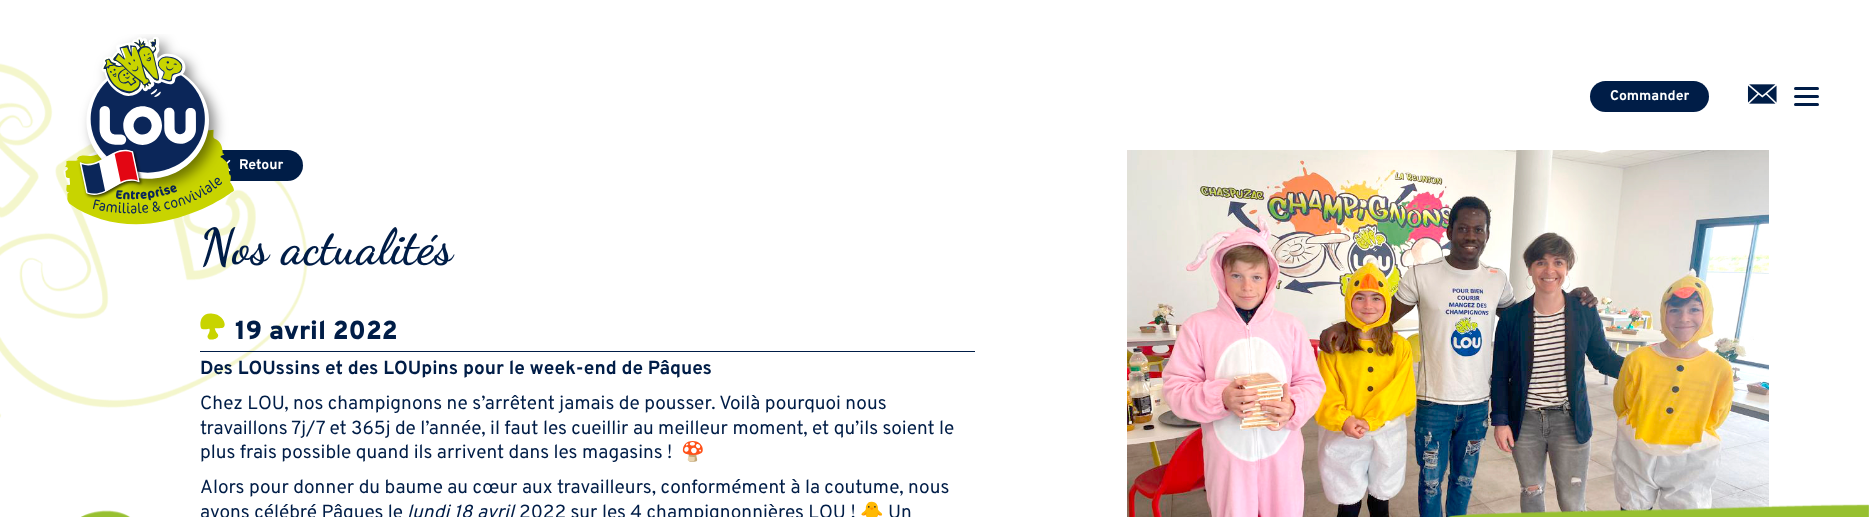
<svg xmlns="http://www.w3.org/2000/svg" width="1869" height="517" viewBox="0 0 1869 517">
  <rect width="100%" height="100%" fill="#ffffff"/>
  <image x="0" y="63" width="308" height="355" href="img3.png"/>
  <rect x="200" y="150" width="103" height="31" rx="15.5" fill="#001d47"/>
  <image x="226" y="160" width="5" height="11" href="img4.png"/>
  <image x="65" y="34" width="169" height="191" href="img1.png"/>
  <rect x="1590" y="81" width="119" height="31" rx="15.5" fill="#001d47"/>
  <text x="1610" y="100" font-family="Overpass" font-size="14" font-weight="bold" fill="#ffffff">Commander</text>
  <image x="1747" y="84" width="30" height="20" href="img2.png"/>
  <rect x="1794" y="87" width="25" height="3" rx="1.5" fill="#001d47"/>
  <rect x="1794" y="95" width="25" height="3" rx="1.5" fill="#001d47"/>
  <rect x="1794" y="103" width="25" height="3" rx="1.5" fill="#001d47"/>
  <text x="239" y="169" font-family="Overpass" font-size="14" font-weight="bold" fill="#ffffff">Retour</text>
  <text x="200" y="263" font-family="Dancing Script" font-size="50" font-weight="bold" fill="#001d47">Nos actualités</text>
  <rect x="200" y="351" width="775" height="1" fill="#001d47"/>
  <image x="200" y="313" width="25" height="27" href="img5.png"/>
  <text x="235" y="339" font-family="Overpass" font-size="26" font-weight="900" fill="#001d47">19 avril 2022</text>
  <text x="200" y="374" font-family="Overpass" font-size="19" font-weight="bold" fill="#001d47">Des LOUssins et des LOUpins pour le week-end de Pâques</text>
  <text x="200" y="409" font-family="Overpass" font-size="19" fill="#001d47">Chez LOU, nos champignons ne s’arrêtent jamais de pousser. Voilà pourquoi nous</text>
  <text x="200" y="434" font-family="Overpass" font-size="19" fill="#001d47">travaillons 7j/7 et 365j de l’année, il faut les cueillir au meilleur moment, et qu’ils soient le</text>
  <text x="200" y="458" font-family="Overpass" font-size="19" fill="#001d47">plus frais possible quand ils arrivent dans les magasins !</text>
  <text x="681" y="458" font-family="Noto Color Emoji" font-size="19" fill="#001d47">🍄</text>
  <text x="200" y="493" font-family="Overpass" font-size="19" fill="#001d47">Alors pour donner du baume au cœur aux travailleurs, conformément à la coutume, nous</text>
  <text x="200" y="518" font-family="Overpass" font-size="19" fill="#001d47">avons célébré Pâques le</text>
  <text x="407" y="518" font-family="Overpass" font-size="19" font-style="italic" fill="#001d47">lundi 18 avril</text>
  <text x="519" y="518" font-family="Overpass" font-size="19" fill="#001d47">2022 sur les 4 champignonnières LOU !</text>
  <text x="860" y="518" font-family="Noto Color Emoji" font-size="19" fill="#001d47">🐥</text>
  <text x="888" y="518" font-family="Overpass" font-size="19" fill="#001d47">Un</text>
  <image x="1127" y="150" width="642" height="367" href="img6.png"/>
  <image x="81" y="504" width="1788" height="13" href="img7.png"/>
</svg>
